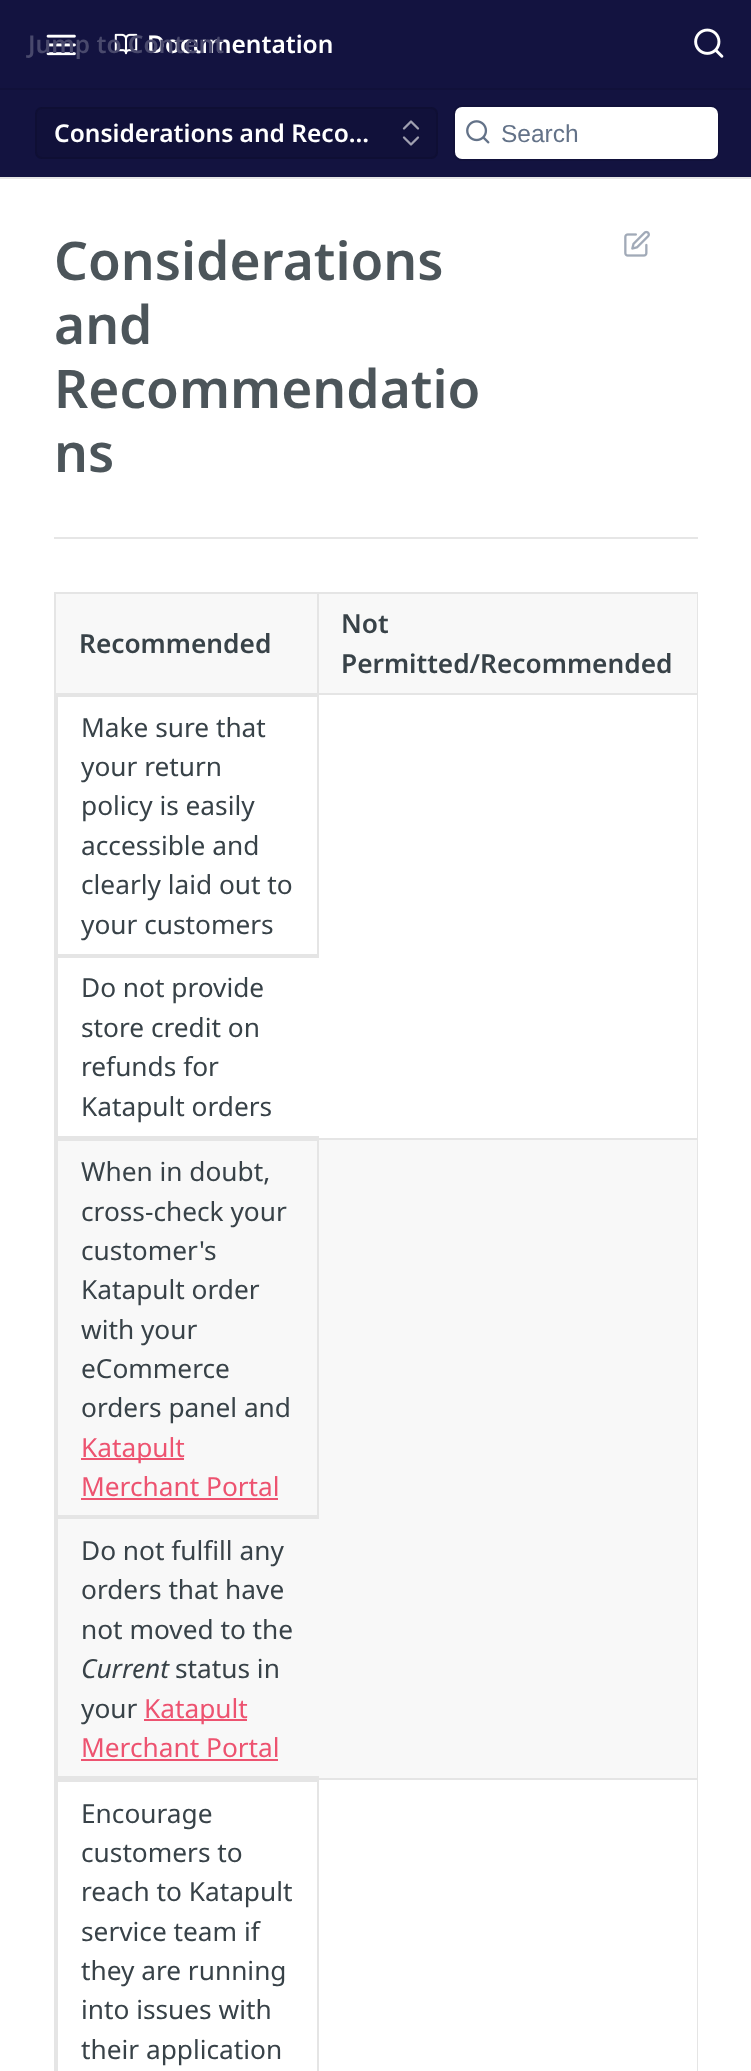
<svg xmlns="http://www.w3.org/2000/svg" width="751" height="2071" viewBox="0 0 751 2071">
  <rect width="100%" height="100%" fill="#ffffff"/>
  <path d="M0 177V179H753V2H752V177Z" fill="#e6e6e6"/>
  <rect x="0" y="0" width="751" height="177" fill="#131340"/>
  <rect x="0" y="88" width="751" height="2" fill="#11113a"/>
  <image x="46" y="34" width="30" height="22" href="img1.png"/>
  <image x="114" y="33" width="24" height="22" href="img2.png"/>
  <text x="147" y="53" font-family="Noto Sans" font-size="24.5" font-weight="600" fill="#ffffff">Documentation</text>
  <text x="28" y="53" font-family="Noto Sans" font-size="24.5" font-weight="600" fill="#49496c">Jump to Content</text>
  <image x="694" y="28" width="30" height="30" href="img3.png"/>
  <rect x="35" y="107" width="403" height="52" rx="7" fill="#11113a"/>
  <rect x="36" y="108" width="401" height="50" rx="6" fill="none" stroke="#000000" stroke-opacity="0.1" stroke-width="2"/>
  <text x="54" y="142" font-family="Noto Sans" font-size="24.5" font-weight="600" fill="#ffffff">Considerations and Reco…</text>
  <path d="M404 137.5L411 144.5L418 137.5M418 128.5L411 121.5L404 128.5" fill="none" stroke="#a0a0b0" stroke-width="2.3" stroke-linecap="round" stroke-linejoin="round"/>
  <rect x="454" y="106" width="264" height="54" rx="8" fill="none" stroke="#11113a" stroke-width="2"/>
  <rect x="455" y="107" width="263" height="52" rx="7" fill="#ffffff"/>
  <image x="466" y="120" width="24" height="24" href="img4.png"/>
  <text x="501" y="142" font-family="Liberation Sans" font-size="24.5" fill="#637288">Search</text>
  <rect x="54" y="537" width="644" height="2" fill="#e6e6e6"/>
  <text x="54" y="280" font-family="Noto Sans" font-size="53.25" font-weight="600" fill="#4c555a">Considerations</text>
  <text x="54" y="344" font-family="Noto Sans" font-size="53.25" font-weight="600" fill="#4c555a">and</text>
  <text x="54" y="408" font-family="Noto Sans" font-size="53.25" font-weight="600" fill="#4c555a">Recommendatio</text>
  <text x="54" y="472" font-family="Noto Sans" font-size="53.25" font-weight="600" fill="#4c555a">ns</text>
  <image x="624" y="230" width="26" height="27" href="img5.png"/>
  <rect x="54" y="592" width="644" height="2" fill="#e5e5e5"/>
  <rect x="697" y="592" width="1" height="1479" fill="#e5e5e5"/>
  <rect x="54" y="592" width="2" height="1479" fill="#e5e5e5"/>
  <rect x="56" y="594" width="641" height="99" fill="#f8f8f8"/>
  <rect x="317" y="693" width="381" height="2" fill="#e5e5e5"/>
  <rect x="317" y="592" width="2" height="103" fill="#e5e5e5"/>
  <rect x="54" y="693" width="265" height="2" fill="#e5e5e5"/>
  <text x="79" y="653" font-family="Noto Sans" font-size="26.25" font-weight="600" fill="#384248">Recommended</text>
  <text x="341" y="633" font-family="Noto Sans" font-size="26.25" font-weight="600" fill="#384248">Not</text>
  <text x="341" y="673" font-family="Noto Sans" font-size="26.25" font-weight="600" fill="#384248">Permitted/Recommended</text>
  <rect x="57" y="696" width="261" height="259" fill="none" stroke="#e5e5e5" stroke-width="2"/>
  <text x="81" y="737" font-family="Noto Sans" font-size="26.25" fill="#384248">Make sure that</text>
  <text x="81" y="776" font-family="Noto Sans" font-size="26.25" fill="#384248">your return</text>
  <text x="81" y="815" font-family="Noto Sans" font-size="26.25" fill="#384248">policy is easily</text>
  <text x="81" y="855" font-family="Noto Sans" font-size="26.25" fill="#384248">accessible and</text>
  <text x="81" y="894" font-family="Noto Sans" font-size="26.25" fill="#384248">clearly laid out to</text>
  <text x="81" y="934" font-family="Noto Sans" font-size="26.25" fill="#384248">your customers</text>
  <rect x="56" y="956" width="263" height="2" fill="#e5e5e5"/>
  <rect x="56" y="1136" width="263" height="2" fill="#e5e5e5"/>
  <rect x="56" y="956" width="2" height="182" fill="#e5e5e5"/>
  <text x="81" y="997" font-family="Noto Sans" font-size="26.25" fill="#384248">Do not provide</text>
  <text x="81" y="1037" font-family="Noto Sans" font-size="26.25" fill="#384248">store credit on</text>
  <text x="81" y="1076" font-family="Noto Sans" font-size="26.25" fill="#384248">refunds for</text>
  <text x="81" y="1116" font-family="Noto Sans" font-size="26.25" fill="#384248">Katapult orders</text>
  <rect x="58" y="1140" width="639" height="638" fill="#f8f8f8"/>
  <rect x="57" y="1140" width="261" height="376" fill="none" stroke="#e5e5e5" stroke-width="2"/>
  <rect x="54" y="1138" width="644" height="2" fill="#e5e5e5"/>
  <text x="81" y="1181" font-family="Noto Sans" font-size="26.25" fill="#384248">When in doubt,</text>
  <text x="81" y="1221" font-family="Noto Sans" font-size="26.25" fill="#384248">cross-check your</text>
  <text x="81" y="1260" font-family="Noto Sans" font-size="26.25" fill="#384248">customer's</text>
  <text x="81" y="1299" font-family="Noto Sans" font-size="26.25" fill="#384248">Katapult order</text>
  <text x="81" y="1339" font-family="Noto Sans" font-size="26.25" fill="#384248">with your</text>
  <text x="81" y="1378" font-family="Noto Sans" font-size="26.25" fill="#384248">eCommerce</text>
  <text x="81" y="1417" font-family="Noto Sans" font-size="26.25" fill="#384248">orders panel and</text>
  <rect x="81" y="1458" width="103" height="2" fill="#ed5370"/>
  <text x="81" y="1457" font-family="Noto Sans" font-size="26.25" fill="#ed5370">Katapult</text>
  <text x="81" y="1496" font-family="Noto Sans" font-size="26.25" fill="#ed5370">Merchant Portal</text>
  <rect x="81" y="1498" width="197" height="2" fill="#ed5370"/>
  <rect x="56" y="1517" width="263" height="2" fill="#e5e5e5"/>
  <rect x="56" y="1776" width="263" height="2" fill="#e5e5e5"/>
  <rect x="56" y="1517" width="2" height="261" fill="#e5e5e5"/>
  <text x="81" y="1560" font-family="Noto Sans" font-size="26.25" fill="#384248">Do not fulfill any</text>
  <text x="81" y="1599" font-family="Noto Sans" font-size="26.25" fill="#384248">orders that have</text>
  <text x="81" y="1639" font-family="Noto Sans" font-size="26.25" fill="#384248">not moved to the</text>
  <text x="81" y="1678" font-family="Noto Sans" font-size="26.25" font-style="italic" fill="#384248">Current</text>
  <text x="175" y="1678" font-family="Noto Sans" font-size="26.25" fill="#384248">status in</text>
  <text x="81" y="1718" font-family="Noto Sans" font-size="26.25" fill="#384248">your</text>
  <rect x="144" y="1719" width="103" height="2" fill="#ed5370"/>
  <text x="144" y="1718" font-family="Noto Sans" font-size="26.25" fill="#ed5370">Katapult</text>
  <text x="81" y="1757" font-family="Noto Sans" font-size="26.25" fill="#ed5370">Merchant Portal</text>
  <rect x="81" y="1759" width="197" height="2" fill="#ed5370"/>
  <rect x="54" y="1778" width="644" height="2" fill="#e5e5e5"/>
  <rect x="57" y="1781" width="261" height="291" fill="none" stroke="#e5e5e5" stroke-width="2"/>
  <text x="81" y="1823" font-family="Noto Sans" font-size="26.25" fill="#384248">Encourage</text>
  <text x="81" y="1862" font-family="Noto Sans" font-size="26.25" fill="#384248">customers to</text>
  <text x="81" y="1901" font-family="Noto Sans" font-size="26.25" fill="#384248">reach to Katapult</text>
  <text x="81" y="1941" font-family="Noto Sans" font-size="26.25" fill="#384248">service team if</text>
  <text x="81" y="1980" font-family="Noto Sans" font-size="26.25" fill="#384248">they are running</text>
  <text x="81" y="2019" font-family="Noto Sans" font-size="26.25" fill="#384248">into issues with</text>
  <text x="81" y="2059" font-family="Noto Sans" font-size="26.25" fill="#384248">their application</text>
</svg>
